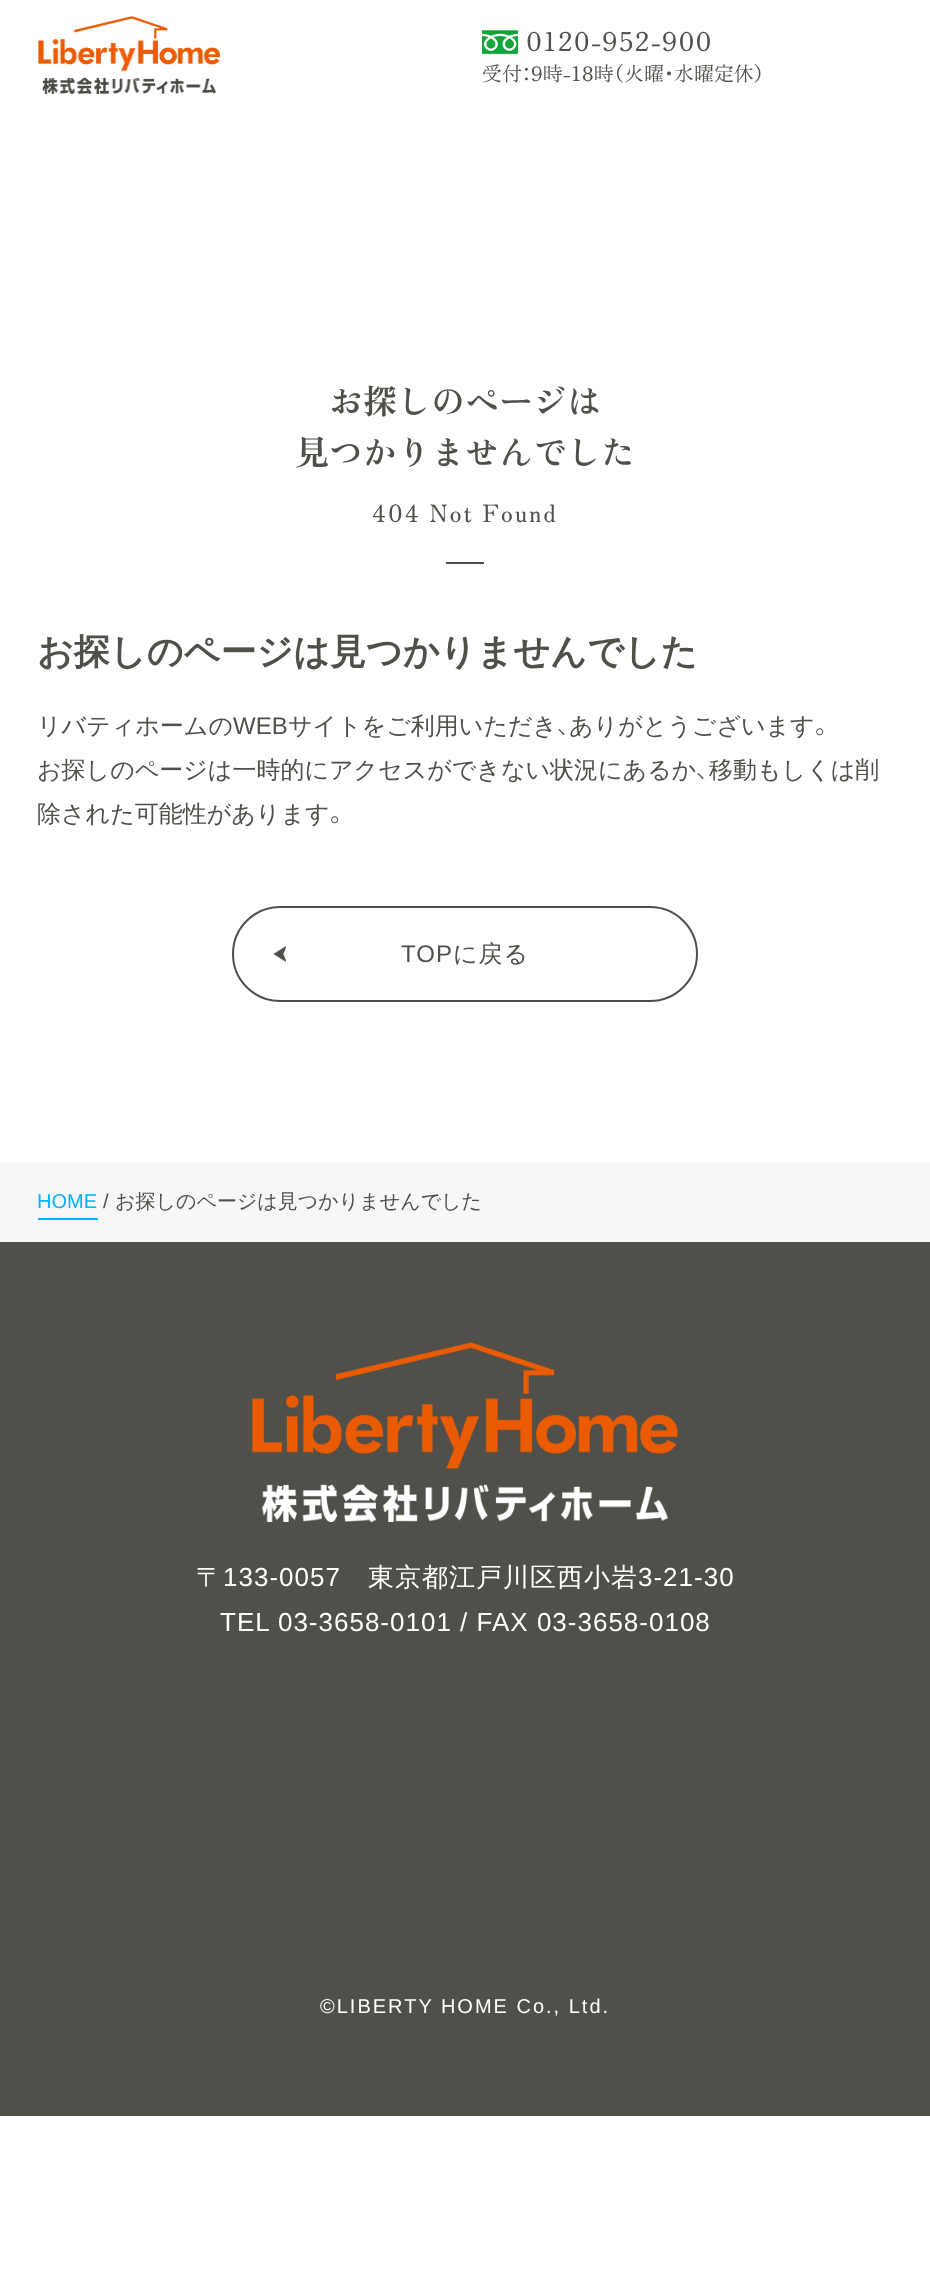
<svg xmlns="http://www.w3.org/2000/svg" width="930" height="2270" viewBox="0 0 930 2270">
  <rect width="100%" height="100%" fill="#ffffff"/>
  <image x="38" y="16" width="182" height="78" href="img1.png"/>
  <image x="482" y="30" width="36" height="24" href="img2.png"/>
  <text x="526" y="51" font-family="Zen Old Mincho" font-size="26" letter-spacing="1" fill="#504f4a">0120-952-900</text>
  <text x="482" y="81" font-family="Zen Old Mincho" font-size="20" fill="#504f4a">受付</text>
  <text x="522" y="81" font-family="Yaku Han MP" font-size="20" font-weight="500" fill="#504f4a">：</text>
  <text x="531" y="81" font-family="Zen Old Mincho" font-size="20" fill="#504f4a">9時-18時</text>
  <text x="613" y="81" font-family="Yaku Han MP" font-size="20" font-weight="500" fill="#504f4a">（</text>
  <text x="624" y="81" font-family="Zen Old Mincho" font-size="20" fill="#504f4a">火曜</text>
  <text x="664" y="81" font-family="Yaku Han MP" font-size="20" font-weight="500" fill="#504f4a">・</text>
  <text x="674" y="81" font-family="Zen Old Mincho" font-size="20" fill="#504f4a">水曜定休</text>
  <text x="754" y="81" font-family="Yaku Han MP" font-size="20" font-weight="500" fill="#504f4a">）</text>
  <text x="329" y="414" font-family="Zen Old Mincho" font-size="34" font-weight="bold" fill="#504f4a">お探しのページは</text>
  <text x="295" y="465" font-family="Zen Old Mincho" font-size="34" font-weight="bold" fill="#504f4a">見つかりませんでした</text>
  <text x="372" y="522" font-family="Zen Old Mincho" font-size="24" letter-spacing="2" fill="#504f4a">404 Not Found</text>
  <rect x="446" y="562" width="38" height="2" fill="#504f4a"/>
  <text x="37" y="664" font-family="WenQuanYi Zen Hei" font-size="36" font-weight="bold" fill="#504f4a">お探しのページは見つかりませんでした</text>
  <text x="37" y="734" font-family="WenQuanYi Zen Hei" font-size="24" font-weight="500" fill="#504f4a">リバティホームの</text>
  <text x="233" y="734" font-family="Liberation Sans" font-size="24" fill="#504f4a">WEB</text>
  <text x="288" y="734" font-family="WenQuanYi Zen Hei" font-size="24" font-weight="500" fill="#504f4a">サイトをご利用いただき</text>
  <text x="557" y="734" font-family="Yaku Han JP" font-size="24" font-weight="300" fill="#504f4a">、</text>
  <text x="569" y="734" font-family="WenQuanYi Zen Hei" font-size="24" font-weight="500" fill="#504f4a">ありがとうございます</text>
  <text x="815" y="734" font-family="Yaku Han JP" font-size="24" font-weight="300" fill="#504f4a">。</text>
  <text x="37" y="778" font-family="WenQuanYi Zen Hei" font-size="24" font-weight="500" fill="#504f4a">お探しのページは一時的にアクセスができない状況にあるか</text>
  <text x="696" y="778" font-family="Yaku Han JP" font-size="24" font-weight="300" fill="#504f4a">、</text>
  <text x="709" y="778" font-family="WenQuanYi Zen Hei" font-size="24" font-weight="500" fill="#504f4a">移動もしくは削</text>
  <text x="37" y="822" font-family="WenQuanYi Zen Hei" font-size="24" font-weight="500" fill="#504f4a">除された可能性があります</text>
  <text x="330" y="822" font-family="Yaku Han JP" font-size="24" font-weight="300" fill="#504f4a">。</text>
  <rect x="233" y="907" width="464" height="94" rx="47" fill="none" stroke="#504f4a" stroke-width="2"/>
  <image x="274" y="946" width="12" height="16" href="img3.png"/>
  <text x="401" y="962" font-family="Liberation Sans" font-size="24" letter-spacing="1" fill="#504f4a">TOP</text>
  <text x="453" y="962" font-family="WenQuanYi Zen Hei" font-size="24" font-weight="500" letter-spacing="1" fill="#504f4a">に戻る</text>
  <rect x="0" y="1162" width="930" height="80" fill="#f7f7f7"/>
  <text x="37" y="1208" font-family="Liberation Sans" font-size="20" fill="#00b4ff">HOME</text>
  <rect x="38" y="1218" width="60" height="2" fill="#00b4ff"/>
  <text x="103" y="1208" font-family="Liberation Sans" font-size="20" fill="#504f4a">/</text>
  <text x="115" y="1208" font-family="WenQuanYi Zen Hei" font-size="20" font-weight="500" fill="#504f4a">お探しのページは見つかりませんでした</text>
  <rect x="0" y="1242" width="930" height="874" fill="#504f4a"/>
  <image x="252" y="1342" width="426" height="180" href="img4.png"/>
  <text x="196" y="1586" font-family="WenQuanYi Zen Hei" font-size="26" font-weight="500" letter-spacing="1" fill="#ffffff">〒</text>
  <text x="223" y="1586" font-family="Liberation Sans" font-size="26" letter-spacing="1" fill="#ffffff">133-0057</text>
  <text x="368" y="1586" font-family="WenQuanYi Zen Hei" font-size="26" font-weight="500" letter-spacing="1" fill="#ffffff">東京都江戸川区西小岩</text>
  <text x="638" y="1586" font-family="Liberation Sans" font-size="26" letter-spacing="1" fill="#ffffff">3-21-30</text>
  <text x="220" y="1631" font-family="Liberation Sans" font-size="26" letter-spacing="1" fill="#ffffff">TEL 03-3658-0101 / FAX 03-3658-0108</text>
  <text x="320" y="2013" font-family="Liberation Sans" font-size="20" letter-spacing="2" fill="#ffffff">©LIBERTY HOME Co., Ltd.</text>
</svg>
